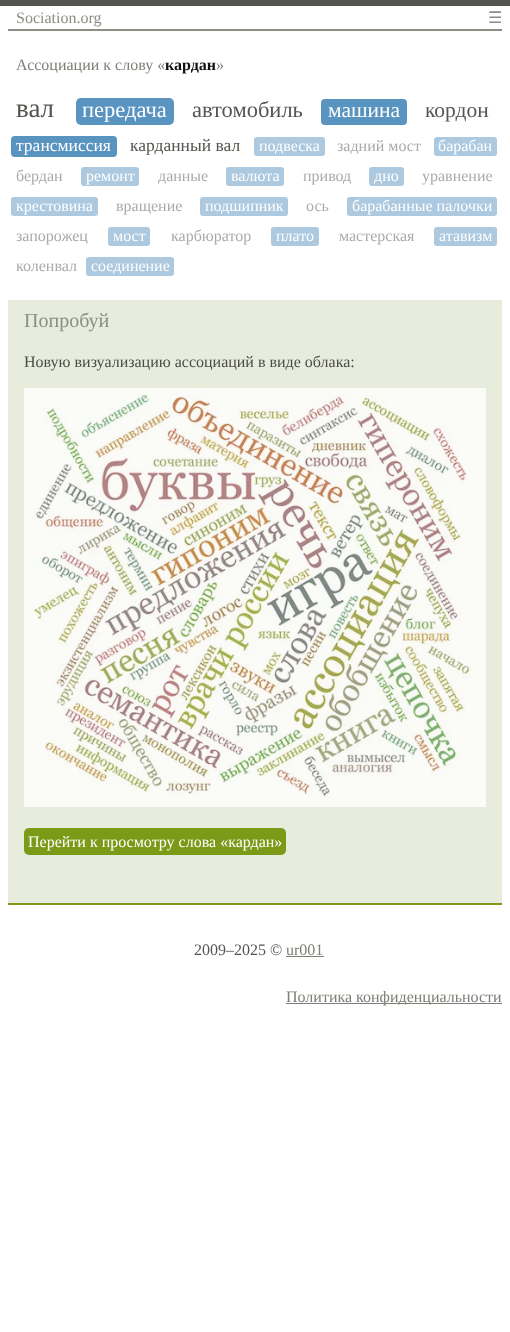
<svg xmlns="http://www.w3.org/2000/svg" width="510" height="1332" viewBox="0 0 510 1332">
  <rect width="100%" height="100%" fill="#ffffff"/>
  <rect x="0" y="0" width="510" height="6" fill="#545550"/>
  <rect x="8" y="29" width="494" height="2" fill="#8b8e85"/>
  <text x="16" y="23" font-family="Liberation Serif" font-size="16" fill="#8b8e85">Sociation.org</text>
  <text x="488" y="23" font-family="DejaVu Sans" font-size="16" fill="#8b8e85">☰</text>
  <text x="16" y="70" font-family="Liberation Serif" font-size="16" fill="#7d7e77">Ассоциации к слову «</text>
  <text x="165" y="70" font-family="Liberation Serif" font-size="16" font-weight="bold" fill="#131312">кардан</text>
  <text x="216" y="70" font-family="Liberation Serif" font-size="16" fill="#7d7e77">»</text>
  <text x="16" y="117" font-family="Liberation Serif" font-size="27" fill="#545550">вал</text>
  <rect x="76" y="98" width="98" height="27" rx="5" fill="#5993c0"/>
  <text x="82" y="117" font-family="Liberation Serif" font-size="22.5" fill="#ffffff">передача</text>
  <text x="192" y="117" font-family="Liberation Serif" font-size="22.5" fill="#545550">автомобиль</text>
  <rect x="321" y="99" width="86" height="26" rx="4" fill="#5993c0"/>
  <text x="328" y="117" font-family="Liberation Serif" font-size="21.5" fill="#ffffff">машина</text>
  <text x="425" y="117" font-family="Liberation Serif" font-size="21.5" fill="#545550">кордон</text>
  <rect x="11" y="136" width="106" height="21" rx="4" fill="#5993c0"/>
  <text x="16" y="151" font-family="Liberation Serif" font-size="17.5" fill="#ffffff">трансмиссия</text>
  <text x="130" y="151" font-family="Liberation Serif" font-size="17.5" fill="#545550">карданный вал</text>
  <rect x="254" y="137" width="71" height="19" rx="3" fill="#acc9e0"/>
  <text x="259" y="151" font-family="Liberation Serif" font-size="16" fill="#ffffff">подвеска</text>
  <text x="337" y="151" font-family="Liberation Serif" font-size="16" fill="#aaaaa8">задний мост</text>
  <rect x="434" y="137" width="63" height="19" rx="3" fill="#acc9e0"/>
  <text x="438" y="151" font-family="Liberation Serif" font-size="16" fill="#ffffff">барабан</text>
  <text x="16" y="181" font-family="Liberation Serif" font-size="16" fill="#aaaaa8">бердан</text>
  <rect x="81" y="167" width="58" height="19" rx="3" fill="#acc9e0"/>
  <text x="86" y="181" font-family="Liberation Serif" font-size="16" fill="#ffffff">ремонт</text>
  <text x="158" y="181" font-family="Liberation Serif" font-size="16" fill="#aaaaa8">данные</text>
  <rect x="226" y="167" width="58" height="19" rx="3" fill="#acc9e0"/>
  <text x="231" y="181" font-family="Liberation Serif" font-size="16" fill="#ffffff">валюта</text>
  <text x="303" y="181" font-family="Liberation Serif" font-size="16" fill="#aaaaa8">привод</text>
  <rect x="369" y="167" width="35" height="19" rx="3" fill="#acc9e0"/>
  <text x="374" y="181" font-family="Liberation Serif" font-size="16" fill="#ffffff">дно</text>
  <text x="422" y="181" font-family="Liberation Serif" font-size="16" fill="#aaaaa8">уравнение</text>
  <rect x="11" y="197" width="87" height="19" rx="3" fill="#acc9e0"/>
  <text x="16" y="211" font-family="Liberation Serif" font-size="16" fill="#ffffff">крестовина</text>
  <text x="116" y="211" font-family="Liberation Serif" font-size="16" fill="#aaaaa8">вращение</text>
  <rect x="200" y="197" width="88" height="19" rx="3" fill="#acc9e0"/>
  <text x="205" y="211" font-family="Liberation Serif" font-size="16" fill="#ffffff">подшипник</text>
  <text x="306" y="211" font-family="Liberation Serif" font-size="16" fill="#aaaaa8">ось</text>
  <rect x="347" y="197" width="150" height="19" rx="3" fill="#acc9e0"/>
  <text x="352" y="211" font-family="Liberation Serif" font-size="16" fill="#ffffff">барабанные палочки</text>
  <text x="16" y="241" font-family="Liberation Serif" font-size="16" fill="#aaaaa8">запорожец</text>
  <rect x="108" y="227" width="42" height="19" rx="3" fill="#acc9e0"/>
  <text x="113" y="241" font-family="Liberation Serif" font-size="16" fill="#ffffff">мост</text>
  <text x="171" y="241" font-family="Liberation Serif" font-size="16" fill="#aaaaa8">карбюратор</text>
  <rect x="271" y="227" width="48" height="19" rx="3" fill="#acc9e0"/>
  <text x="276" y="241" font-family="Liberation Serif" font-size="16" fill="#ffffff">плато</text>
  <text x="339" y="241" font-family="Liberation Serif" font-size="16" fill="#aaaaa8">мастерская</text>
  <rect x="434" y="227" width="63" height="19" rx="3" fill="#acc9e0"/>
  <text x="439" y="241" font-family="Liberation Serif" font-size="16" fill="#ffffff">атавизм</text>
  <text x="16" y="271" font-family="Liberation Serif" font-size="16" fill="#aaaaa8">коленвал</text>
  <rect x="86" y="257" width="88" height="19" rx="3" fill="#acc9e0"/>
  <text x="91" y="271" font-family="Liberation Serif" font-size="16" fill="#ffffff">соединение</text>
  <rect x="8" y="300" width="494" height="603" fill="#e8ecdd"/>
  <rect x="8" y="903" width="494" height="2" fill="#7b9b18"/>
  <text x="24" y="327" font-family="Liberation Serif" font-size="20" fill="#8b8e85">Попробуй</text>
  <text x="24" y="367" font-family="Liberation Serif" font-size="16" fill="#4a4c47">Новую визуализацию ассоциаций в виде облака:</text>
  <image x="24" y="388" width="462" height="419" href="img1.png"/>
  <rect x="24" y="828" width="262" height="27" rx="5" fill="#7b9b18"/>
  <text x="28" y="847" font-family="Liberation Serif" font-size="16" fill="#ffffff">Перейти к просмотру слова «кардан»</text>
  <text x="194" y="955" font-family="Liberation Serif" font-size="16" fill="#545550">2009–2025 ©</text>
  <text x="286" y="955" font-family="Liberation Serif" font-size="16" fill="#7d7e77">ur001</text>
  <rect x="286" y="956" width="38" height="1" fill="#7d7e77"/>
  <rect x="286" y="1003" width="216" height="1" fill="#7d7e77"/>
  <text x="286" y="1002" font-family="Liberation Serif" font-size="16" fill="#7d7e77">Политика конфиденциальности</text>
</svg>
